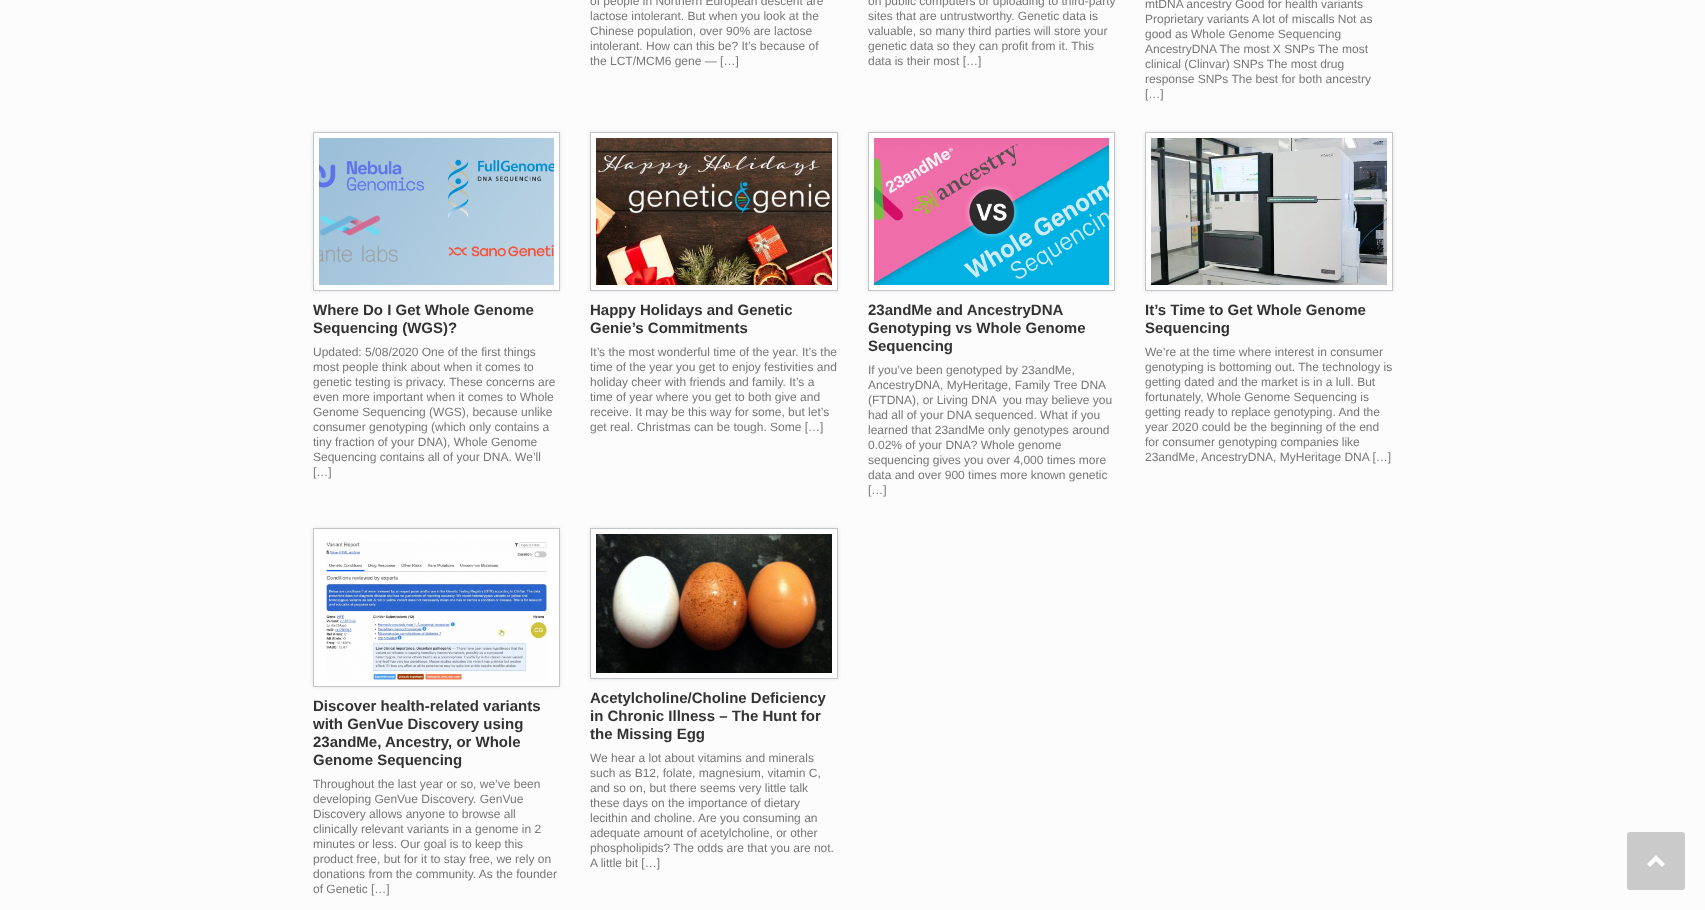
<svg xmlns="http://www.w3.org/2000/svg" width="1705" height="910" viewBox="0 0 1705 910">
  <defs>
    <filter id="blur1" x="-50%" y="-200%" width="200%" height="500%"><feGaussianBlur stdDeviation="2"/></filter>
  </defs>
  <rect width="100%" height="100%" fill="#fcfcfc"/>
  <text x="590" y="5" font-family="Liberation Sans" font-size="12" fill="#777777">of people in Northern European descent are</text>
  <text x="590" y="20" font-family="Liberation Sans" font-size="12" fill="#777777">lactose intolerant. But when you look at the</text>
  <text x="590" y="35" font-family="Liberation Sans" font-size="12" fill="#777777">Chinese population, over 90% are lactose</text>
  <text x="590" y="50" font-family="Liberation Sans" font-size="12" fill="#777777">intolerant. How can this be? It’s because of</text>
  <text x="590" y="65" font-family="Liberation Sans" font-size="12" fill="#777777">the LCT/MCM6 gene — […]</text>
  <text x="868" y="5" font-family="Liberation Sans" font-size="12" fill="#777777">on public computers or uploading to third-party</text>
  <text x="868" y="20" font-family="Liberation Sans" font-size="12" fill="#777777">sites that are untrustworthy. Genetic data is</text>
  <text x="868" y="35" font-family="Liberation Sans" font-size="12" fill="#777777">valuable, so many third parties will store your</text>
  <text x="868" y="50" font-family="Liberation Sans" font-size="12" fill="#777777">genetic data so they can profit from it. This</text>
  <text x="868" y="65" font-family="Liberation Sans" font-size="12" fill="#777777">data is their most […]</text>
  <text x="1145" y="8" font-family="Liberation Sans" font-size="12" fill="#777777">mtDNA ancestry Good for health variants</text>
  <text x="1145" y="23" font-family="Liberation Sans" font-size="12" fill="#777777">Proprietary variants A lot of miscalls Not as</text>
  <text x="1145" y="38" font-family="Liberation Sans" font-size="12" fill="#777777">good as Whole Genome Sequencing</text>
  <text x="1145" y="53" font-family="Liberation Sans" font-size="12" fill="#777777">AncestryDNA The most X SNPs The most</text>
  <text x="1145" y="68" font-family="Liberation Sans" font-size="12" fill="#777777">clinical (Clinvar) SNPs The most drug</text>
  <text x="1145" y="83" font-family="Liberation Sans" font-size="12" fill="#777777">response SNPs The best for both ancestry</text>
  <text x="1145" y="98" font-family="Liberation Sans" font-size="12" fill="#777777">[…]</text>
  <rect x="313" y="132" width="247" height="159" fill="#000000" fill-opacity="0.1" filter="url(#blur1)"/>
  <rect x="313.5" y="132.5" width="246" height="158" fill="#ffffff" stroke="#c2c5ca"/>
  <image x="319" y="138" width="235" height="147" href="img1.png"/>
  <text x="313" y="315" font-family="Liberation Sans" font-size="15" font-weight="bold" fill="#333333">Where Do I Get Whole Genome</text>
  <text x="313" y="333" font-family="Liberation Sans" font-size="15" font-weight="bold" fill="#333333">Sequencing (WGS)?</text>
  <text x="313" y="356" font-family="Liberation Sans" font-size="12" fill="#777777">Updated: 5/08/2020 One of the first things</text>
  <text x="313" y="371" font-family="Liberation Sans" font-size="12" fill="#777777">most people think about when it comes to</text>
  <text x="313" y="386" font-family="Liberation Sans" font-size="12" fill="#777777">genetic testing is privacy. These concerns are</text>
  <text x="313" y="401" font-family="Liberation Sans" font-size="12" fill="#777777">even more important when it comes to Whole</text>
  <text x="313" y="416" font-family="Liberation Sans" font-size="12" fill="#777777">Genome Sequencing (WGS), because unlike</text>
  <text x="313" y="431" font-family="Liberation Sans" font-size="12" fill="#777777">consumer genotyping (which only contains a</text>
  <text x="313" y="446" font-family="Liberation Sans" font-size="12" fill="#777777">tiny fraction of your DNA), Whole Genome</text>
  <text x="313" y="461" font-family="Liberation Sans" font-size="12" fill="#777777">Sequencing contains all of your DNA. We’ll</text>
  <text x="313" y="476" font-family="Liberation Sans" font-size="12" fill="#777777">[…]</text>
  <rect x="590" y="132" width="248" height="159" fill="#000000" fill-opacity="0.1" filter="url(#blur1)"/>
  <rect x="590.5" y="132.5" width="247" height="158" fill="#ffffff" stroke="#c2c5ca"/>
  <image x="596" y="138" width="236" height="147" href="img2.png"/>
  <text x="590" y="315" font-family="Liberation Sans" font-size="15" font-weight="bold" fill="#333333">Happy Holidays and Genetic</text>
  <text x="590" y="333" font-family="Liberation Sans" font-size="15" font-weight="bold" fill="#333333">Genie’s Commitments</text>
  <text x="590" y="356" font-family="Liberation Sans" font-size="12" fill="#777777">It’s the most wonderful time of the year. It’s the</text>
  <text x="590" y="371" font-family="Liberation Sans" font-size="12" fill="#777777">time of the year you get to enjoy festivities and</text>
  <text x="590" y="386" font-family="Liberation Sans" font-size="12" fill="#777777">holiday cheer with friends and family. It’s a</text>
  <text x="590" y="401" font-family="Liberation Sans" font-size="12" fill="#777777">time of year where you get to both give and</text>
  <text x="590" y="416" font-family="Liberation Sans" font-size="12" fill="#777777">receive. It may be this way for some, but let’s</text>
  <text x="590" y="431" font-family="Liberation Sans" font-size="12" fill="#777777">get real. Christmas can be tough. Some […]</text>
  <rect x="868" y="132" width="247" height="159" fill="#000000" fill-opacity="0.1" filter="url(#blur1)"/>
  <rect x="868.5" y="132.5" width="246" height="158" fill="#ffffff" stroke="#c2c5ca"/>
  <image x="874" y="138" width="235" height="147" href="img3.png"/>
  <text x="868" y="315" font-family="Liberation Sans" font-size="15" font-weight="bold" fill="#333333">23andMe and AncestryDNA</text>
  <text x="868" y="333" font-family="Liberation Sans" font-size="15" font-weight="bold" fill="#333333">Genotyping vs Whole Genome</text>
  <text x="868" y="351" font-family="Liberation Sans" font-size="15" font-weight="bold" fill="#333333">Sequencing</text>
  <text x="868" y="374" font-family="Liberation Sans" font-size="12" fill="#777777">If you’ve been genotyped by 23andMe,</text>
  <text x="868" y="389" font-family="Liberation Sans" font-size="12" fill="#777777">AncestryDNA, MyHeritage, Family Tree DNA</text>
  <text x="868" y="404" font-family="Liberation Sans" font-size="12" fill="#777777" xml:space="preserve">(FTDNA), or Living DNA  you may believe you</text>
  <text x="868" y="419" font-family="Liberation Sans" font-size="12" fill="#777777">had all of your DNA sequenced. What if you</text>
  <text x="868" y="434" font-family="Liberation Sans" font-size="12" fill="#777777">learned that 23andMe only genotypes around</text>
  <text x="868" y="449" font-family="Liberation Sans" font-size="12" fill="#777777">0.02% of your DNA? Whole genome</text>
  <text x="868" y="464" font-family="Liberation Sans" font-size="12" fill="#777777">sequencing gives you over 4,000 times more</text>
  <text x="868" y="479" font-family="Liberation Sans" font-size="12" fill="#777777">data and over 900 times more known genetic</text>
  <text x="868" y="494" font-family="Liberation Sans" font-size="12" fill="#777777">[…]</text>
  <rect x="1145" y="132" width="248" height="159" fill="#000000" fill-opacity="0.1" filter="url(#blur1)"/>
  <rect x="1145.5" y="132.5" width="247" height="158" fill="#ffffff" stroke="#c2c5ca"/>
  <image x="1151" y="138" width="236" height="147" href="img4.png"/>
  <text x="1145" y="315" font-family="Liberation Sans" font-size="15" font-weight="bold" fill="#333333">It’s Time to Get Whole Genome</text>
  <text x="1145" y="333" font-family="Liberation Sans" font-size="15" font-weight="bold" fill="#333333">Sequencing</text>
  <text x="1145" y="356" font-family="Liberation Sans" font-size="12" fill="#777777">We’re at the time where interest in consumer</text>
  <text x="1145" y="371" font-family="Liberation Sans" font-size="12" fill="#777777">genotyping is bottoming out. The technology is</text>
  <text x="1145" y="386" font-family="Liberation Sans" font-size="12" fill="#777777">getting dated and the market is in a lull. But</text>
  <text x="1145" y="401" font-family="Liberation Sans" font-size="12" fill="#777777">fortunately, Whole Genome Sequencing is</text>
  <text x="1145" y="416" font-family="Liberation Sans" font-size="12" fill="#777777">getting ready to replace genotyping. And the</text>
  <text x="1145" y="431" font-family="Liberation Sans" font-size="12" fill="#777777">year 2020 could be the beginning of the end</text>
  <text x="1145" y="446" font-family="Liberation Sans" font-size="12" fill="#777777">for consumer genotyping companies like</text>
  <text x="1145" y="461" font-family="Liberation Sans" font-size="12" fill="#777777">23andMe, AncestryDNA, MyHeritage DNA […]</text>
  <rect x="313" y="528" width="247" height="159" fill="#000000" fill-opacity="0.1" filter="url(#blur1)"/>
  <rect x="313.5" y="528.5" width="246" height="158" fill="#ffffff" stroke="#c2c5ca"/>
  <image x="326" y="542" width="222" height="139" href="img5.png"/>
  <text x="313" y="711" font-family="Liberation Sans" font-size="15" font-weight="bold" fill="#333333">Discover health-related variants</text>
  <text x="313" y="729" font-family="Liberation Sans" font-size="15" font-weight="bold" fill="#333333">with GenVue Discovery using</text>
  <text x="313" y="747" font-family="Liberation Sans" font-size="15" font-weight="bold" fill="#333333">23andMe, Ancestry, or Whole</text>
  <text x="313" y="765" font-family="Liberation Sans" font-size="15" font-weight="bold" fill="#333333">Genome Sequencing</text>
  <text x="313" y="788" font-family="Liberation Sans" font-size="12" fill="#777777">Throughout the last year or so, we’ve been</text>
  <text x="313" y="803" font-family="Liberation Sans" font-size="12" fill="#777777">developing GenVue Discovery. GenVue</text>
  <text x="313" y="818" font-family="Liberation Sans" font-size="12" fill="#777777">Discovery allows anyone to browse all</text>
  <text x="313" y="833" font-family="Liberation Sans" font-size="12" fill="#777777">clinically relevant variants in a genome in 2</text>
  <text x="313" y="848" font-family="Liberation Sans" font-size="12" fill="#777777">minutes or less. Our goal is to keep this</text>
  <text x="313" y="863" font-family="Liberation Sans" font-size="12" fill="#777777">product free, but for it to stay free, we rely on</text>
  <text x="313" y="878" font-family="Liberation Sans" font-size="12" fill="#777777">donations from the community. As the founder</text>
  <text x="313" y="893" font-family="Liberation Sans" font-size="12" fill="#777777">of Genetic […]</text>
  <rect x="590" y="528" width="248" height="151" fill="#000000" fill-opacity="0.1" filter="url(#blur1)"/>
  <rect x="590.5" y="528.5" width="247" height="150" fill="#ffffff" stroke="#c2c5ca"/>
  <image x="596" y="534" width="236" height="139" href="img6.png"/>
  <text x="590" y="703" font-family="Liberation Sans" font-size="15" font-weight="bold" fill="#333333">Acetylcholine/Choline Deficiency</text>
  <text x="590" y="721" font-family="Liberation Sans" font-size="15" font-weight="bold" fill="#333333">in Chronic Illness – The Hunt for</text>
  <text x="590" y="739" font-family="Liberation Sans" font-size="15" font-weight="bold" fill="#333333">the Missing Egg</text>
  <text x="590" y="762" font-family="Liberation Sans" font-size="12" fill="#777777">We hear a lot about vitamins and minerals</text>
  <text x="590" y="777" font-family="Liberation Sans" font-size="12" fill="#777777">such as B12, folate, magnesium, vitamin C,</text>
  <text x="590" y="792" font-family="Liberation Sans" font-size="12" fill="#777777">and so on, but there seems very little talk</text>
  <text x="590" y="807" font-family="Liberation Sans" font-size="12" fill="#777777">these days on the importance of dietary</text>
  <text x="590" y="822" font-family="Liberation Sans" font-size="12" fill="#777777">lecithin and choline. Are you consuming an</text>
  <text x="590" y="837" font-family="Liberation Sans" font-size="12" fill="#777777">adequate amount of acetylcholine, or other</text>
  <text x="590" y="852" font-family="Liberation Sans" font-size="12" fill="#777777">phospholipids? The odds are that you are not.</text>
  <text x="590" y="867" font-family="Liberation Sans" font-size="12" fill="#777777">A little bit […]</text>
  <rect x="1627" y="832" width="58" height="58" rx="3" fill="#cacaca"/>
  <path d="M1665 864L1656 855L1647 864L1650 867L1656 861L1662 867Z" fill="#fdfdfd"/>
</svg>
